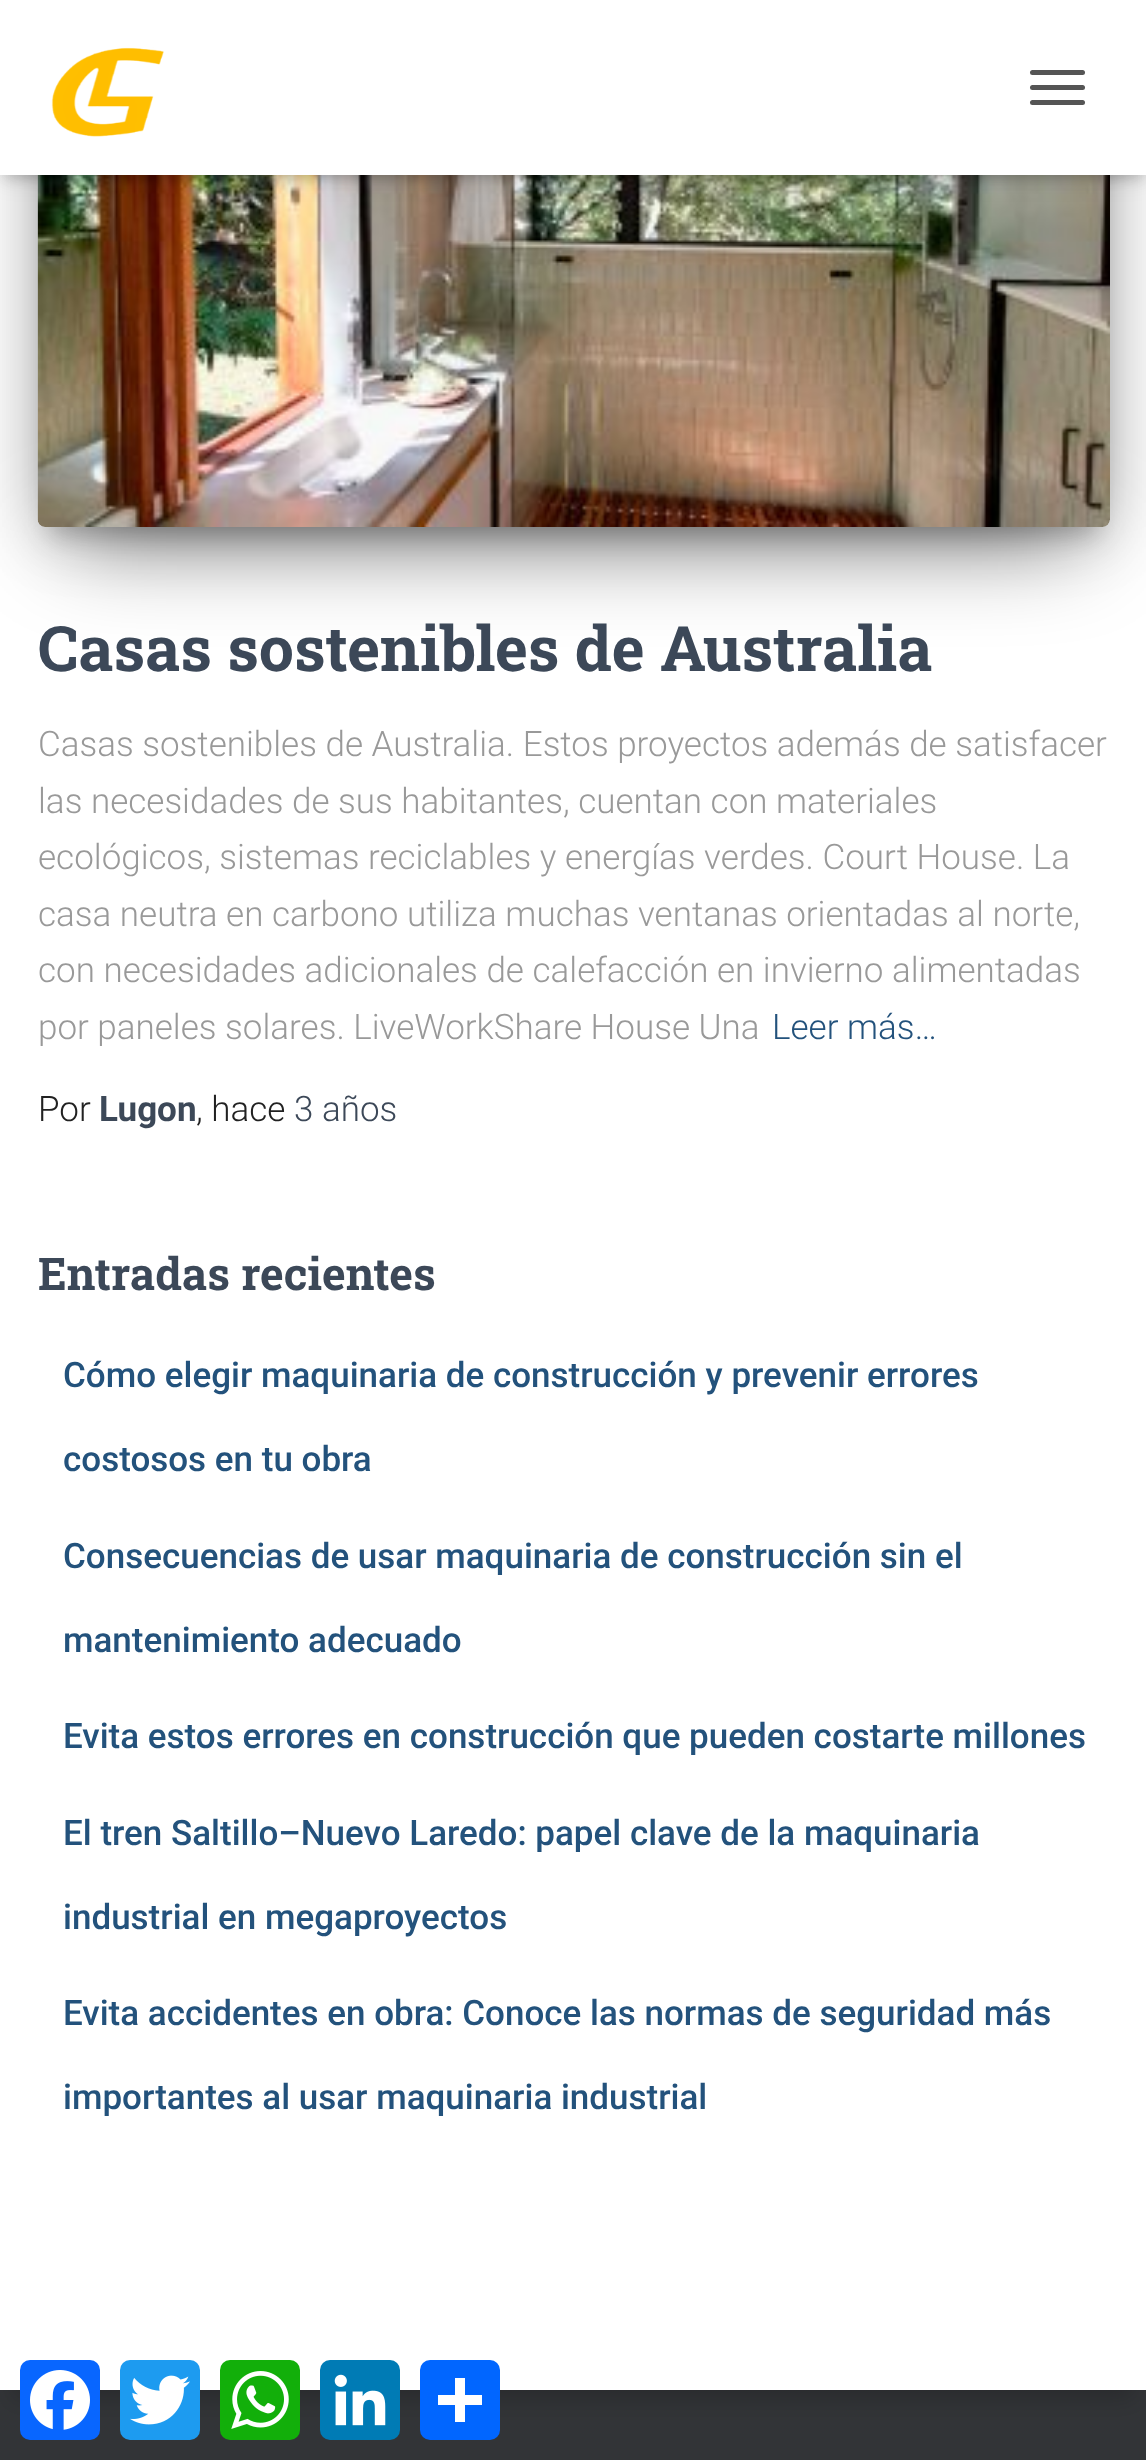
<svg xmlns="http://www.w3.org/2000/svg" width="1146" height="2460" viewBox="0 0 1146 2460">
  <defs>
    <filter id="blur1" x="-50%" y="-200%" width="200%" height="500%"><feGaussianBlur stdDeviation="12.5"/></filter>
    <filter id="blur2" x="-50%" y="-200%" width="200%" height="500%"><feGaussianBlur stdDeviation="31"/></filter>
    <filter id="blur3" x="-50%" y="-200%" width="200%" height="500%"><feGaussianBlur stdDeviation="47.5"/></filter>
    <filter id="blur4" x="-50%" y="-200%" width="200%" height="500%"><feGaussianBlur stdDeviation="6"/></filter>
  </defs>
  <rect width="100%" height="100%" fill="#323437"/>
  <rect x="13" y="-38" width="1122" height="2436" fill="#000000" fill-opacity="0.2" filter="url(#blur1)"/>
  <rect x="0" y="175" width="1146" height="2215" fill="#ffffff"/>
  <rect x="50" y="-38" width="1048" height="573" fill="#000000" fill-opacity="0.2" filter="url(#blur1)"/>
  <rect x="38" y="-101" width="1072" height="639" rx="8" fill="#000000" fill-opacity="0.12" filter="url(#blur2)"/>
  <rect x="68" y="-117" width="1012" height="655" fill="#000000" fill-opacity="0.56" filter="url(#blur3)"/>
  <image x="37" y="175" width="1073" height="352" href="img2.png"/>
  <rect x="5" y="15" width="1138" height="165" fill="#000000" fill-opacity="0.1" filter="url(#blur4)"/>
  <rect x="0" y="3" width="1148" height="175" fill="#000000" fill-opacity="0.12" filter="url(#blur1)"/>
  <rect x="15" y="18" width="1118" height="145" fill="#000000" fill-opacity="0.42" filter="url(#blur1)"/>
  <rect x="0" y="0" width="1146" height="175" fill="#ffffff"/>
  <image x="51" y="47" width="113" height="90" href="img1.png"/>
  <rect x="1030" y="70" width="55" height="5" rx="2.5" fill="#555555"/>
  <rect x="1030" y="85" width="55" height="5" rx="2.5" fill="#555555"/>
  <rect x="1030" y="100" width="55" height="5" rx="2.5" fill="#555555"/>
  <text x="38" y="671" font-family="Roboto Slab" font-size="62.5" font-weight="bold" fill="#3c4858">Casas sostenibles de Australia</text>
  <text x="38" y="756" font-family="Roboto" font-size="35" font-weight="300" fill="#999999">Casas sostenibles de Australia. Estos proyectos además de satisfacer</text>
  <text x="38" y="813" font-family="Roboto" font-size="35" font-weight="300" fill="#999999">las necesidades de sus habitantes, cuentan con materiales</text>
  <text x="38" y="869" font-family="Roboto" font-size="35" font-weight="300" fill="#999999">ecológicos, sistemas reciclables y energías verdes. Court House. La</text>
  <text x="38" y="926" font-family="Roboto" font-size="35" font-weight="300" fill="#999999">casa neutra en carbono utiliza muchas ventanas orientadas al norte,</text>
  <text x="38" y="982" font-family="Roboto" font-size="35" font-weight="300" fill="#999999">con necesidades adicionales de calefacción en invierno alimentadas</text>
  <text x="38" y="1039" font-family="Roboto" font-size="35" font-weight="300" fill="#999999">por paneles solares. LiveWorkShare House Una</text>
  <text x="772" y="1039" font-family="Roboto" font-size="35" font-weight="300" fill="#23527c">Leer más…</text>
  <text x="38" y="1121" font-family="Roboto" font-size="35" font-weight="300" fill="#212121">Por</text>
  <text x="99" y="1121" font-family="Roboto" font-size="35" font-weight="bold" fill="#3c4858">Lugon</text>
  <text x="196" y="1121" font-family="Roboto" font-size="35" font-weight="300" fill="#212121">, hace</text>
  <text x="294" y="1121" font-family="Roboto" font-size="35" font-weight="300" fill="#3c4858">3 años</text>
  <text x="38" y="1290" font-family="Roboto Slab" font-size="45" font-weight="bold" fill="#3c4858">Entradas recientes</text>
  <text x="63" y="1387" font-family="Roboto" font-size="35" font-weight="500" fill="#23527c">Cómo elegir maquinaria de construcción y prevenir errores</text>
  <text x="63" y="1471" font-family="Roboto" font-size="35" font-weight="500" fill="#23527c">costosos en tu obra</text>
  <text x="63" y="1568" font-family="Roboto" font-size="35" font-weight="500" fill="#23527c">Consecuencias de usar maquinaria de construcción sin el</text>
  <text x="63" y="1652" font-family="Roboto" font-size="35" font-weight="500" fill="#23527c">mantenimiento adecuado</text>
  <text x="63" y="1748" font-family="Roboto" font-size="35" font-weight="500" fill="#23527c">Evita estos errores en construcción que pueden costarte millones</text>
  <text x="63" y="1845" font-family="Roboto" font-size="35" font-weight="500" fill="#23527c">El tren Saltillo–Nuevo Laredo: papel clave de la maquinaria</text>
  <text x="63" y="1929" font-family="Roboto" font-size="35" font-weight="500" fill="#23527c">industrial en megaproyectos</text>
  <text x="63" y="2025" font-family="Roboto" font-size="35" font-weight="500" fill="#23527c">Evita accidentes en obra: Conoce las normas de seguridad más</text>
  <text x="63" y="2109" font-family="Roboto" font-size="35" font-weight="500" fill="#23527c">importantes al usar maquinaria industrial</text>
  <rect x="20" y="2360" width="80" height="80" rx="10" fill="#0866ff"/>
  <image x="30" y="2370" width="60" height="60" href="img3.png"/>
  <rect x="120" y="2360" width="80" height="80" rx="10" fill="#1d9bf0"/>
  <image x="130" y="2375" width="60" height="50" href="img4.png"/>
  <rect x="220" y="2360" width="80" height="80" rx="10" fill="#12af0a"/>
  <image x="231" y="2371" width="58" height="58" href="img5.png"/>
  <rect x="320" y="2360" width="80" height="80" rx="10" fill="#007bb5"/>
  <image x="334" y="2374" width="52" height="52" href="img6.png"/>
  <rect x="420" y="2360" width="80" height="80" rx="10" fill="#0166ff"/>
  <rect x="455" y="2378" width="10" height="44" fill="#ffffff"/>
  <rect x="438" y="2395" width="44" height="10" fill="#ffffff"/>
</svg>
